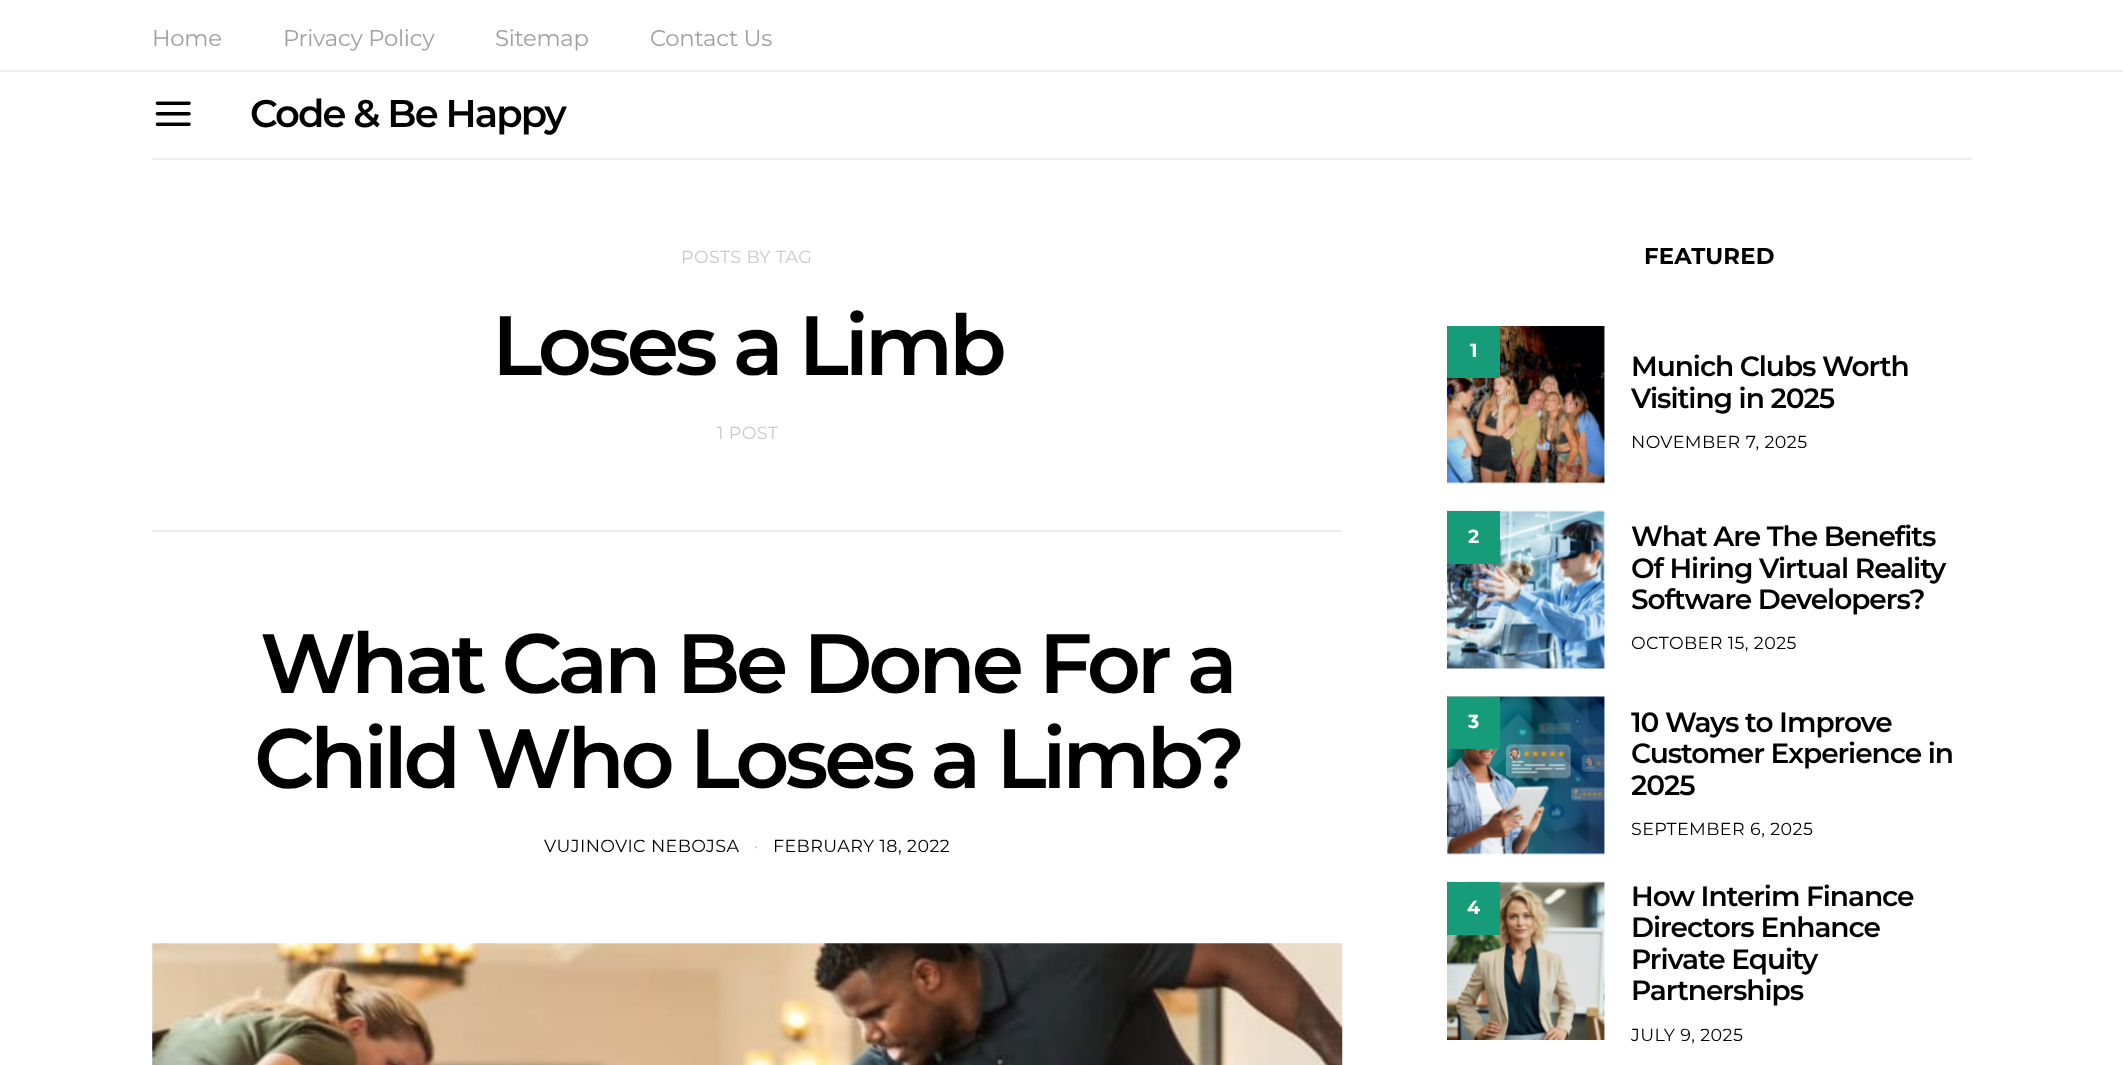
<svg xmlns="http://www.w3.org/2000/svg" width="2123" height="1065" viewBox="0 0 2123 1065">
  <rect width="100%" height="100%" fill="#ffffff"/>
  <rect x="0" y="70" width="2123" height="2" fill="#eeeeee"/>
  <text x="152" y="46" font-family="Montserrat" font-size="22.75" letter-spacing="-0.25" fill="#a0a0a0">Home</text>
  <text x="283" y="46" font-family="Montserrat" font-size="22.75" letter-spacing="-0.25" fill="#a0a0a0">Privacy Policy</text>
  <text x="495" y="46" font-family="Montserrat" font-size="22.75" letter-spacing="-0.25" fill="#a0a0a0">Sitemap</text>
  <text x="650" y="46" font-family="Montserrat" font-size="22.75" letter-spacing="-0.25" fill="#a0a0a0">Contact Us</text>
  <rect x="152" y="158" width="1820" height="2" fill="#eeeeee"/>
  <image x="155" y="101" width="36" height="25" href="img1.png"/>
  <text x="250" y="127" font-family="Montserrat" font-size="38.5" font-weight="600" letter-spacing="-1.9" fill="#000000">Code &amp; Be Happy</text>
  <text x="681" y="263" font-family="Montserrat" font-size="17.5" letter-spacing="0.4" fill="#c9c9c9">POSTS BY TAG</text>
  <text x="492" y="375" font-family="Montserrat" font-size="84" font-weight="600" letter-spacing="-4.2" fill="#000000">Loses a Limb</text>
  <text x="717" y="439" font-family="Montserrat" font-size="17.5" letter-spacing="0.4" fill="#c9c9c9">1 POST</text>
  <rect x="152" y="530" width="1190" height="2" fill="#e9ecef"/>
  <text x="260" y="693" font-family="Montserrat" font-size="84" font-weight="600" letter-spacing="-4.2" fill="#000000">What Can Be Done For a</text>
  <text x="254" y="788" font-family="Montserrat" font-size="84" font-weight="600" letter-spacing="-4.2" fill="#000000">Child Who Loses a Limb?</text>
  <text x="544" y="852" font-family="Montserrat" font-size="17.5" letter-spacing="0.4" fill="#000000">VUJINOVIC NEBOJSA</text>
  <text x="754" y="852" font-family="Montserrat" font-size="17.5" letter-spacing="0.4" fill="#c9c9c9">·</text>
  <text x="773" y="852" font-family="Montserrat" font-size="17.5" letter-spacing="0.4" fill="#000000">FEBRUARY 18, 2022</text>
  <image x="152" y="943" width="1191" height="122" href="img2.png"/>
  <text x="1644" y="264" font-family="Montserrat" font-size="22.75" font-weight="bold" letter-spacing="0.25" fill="#000000">FEATURED</text>
  <image x="1447" y="326" width="158" height="158" href="img3.png"/>
  <rect x="1447" y="326" width="53" height="52" fill="#169c78"/>
  <text x="1470" y="357" font-family="Montserrat" font-size="19" font-weight="bold" fill="#ffffff">1</text>
  <text x="1631" y="376" font-family="Montserrat" font-size="28" font-weight="600" letter-spacing="-1.05" fill="#000000">Munich Clubs Worth</text>
  <text x="1631" y="408" font-family="Montserrat" font-size="28" font-weight="600" letter-spacing="-1.05" fill="#000000">Visiting in 2025</text>
  <text x="1631" y="448" font-family="Montserrat" font-size="17.5" letter-spacing="0.4" fill="#000000">NOVEMBER 7, 2025</text>
  <image x="1447" y="510" width="158" height="159" href="img4.png"/>
  <rect x="1447" y="511" width="53" height="53" fill="#169c78"/>
  <text x="1468" y="543" font-family="Montserrat" font-size="19" font-weight="bold" fill="#ffffff">2</text>
  <text x="1631" y="546" font-family="Montserrat" font-size="28" font-weight="600" letter-spacing="-1.05" fill="#000000">What Are The Benefits</text>
  <text x="1631" y="578" font-family="Montserrat" font-size="28" font-weight="600" letter-spacing="-1.05" fill="#000000">Of Hiring Virtual Reality</text>
  <text x="1631" y="609" font-family="Montserrat" font-size="28" font-weight="600" letter-spacing="-1.05" fill="#000000">Software Developers?</text>
  <text x="1631" y="649" font-family="Montserrat" font-size="17.5" letter-spacing="0.4" fill="#000000">OCTOBER 15, 2025</text>
  <image x="1447" y="696" width="158" height="159" href="img5.png"/>
  <rect x="1447" y="697" width="53" height="52" fill="#169c78"/>
  <text x="1468" y="728" font-family="Montserrat" font-size="19" font-weight="bold" fill="#ffffff">3</text>
  <text x="1631" y="732" font-family="Montserrat" font-size="28" font-weight="600" letter-spacing="-1.05" fill="#000000">10 Ways to Improve</text>
  <text x="1631" y="763" font-family="Montserrat" font-size="28" font-weight="600" letter-spacing="-1.05" fill="#000000">Customer Experience in</text>
  <text x="1631" y="795" font-family="Montserrat" font-size="28" font-weight="600" letter-spacing="-1.05" fill="#000000">2025</text>
  <text x="1631" y="835" font-family="Montserrat" font-size="17.5" letter-spacing="0.4" fill="#000000">SEPTEMBER 6, 2025</text>
  <image x="1447" y="881" width="158" height="159" href="img6.png"/>
  <rect x="1447" y="882" width="53" height="53" fill="#169c78"/>
  <text x="1467" y="914" font-family="Montserrat" font-size="19" font-weight="bold" fill="#ffffff">4</text>
  <text x="1631" y="906" font-family="Montserrat" font-size="28" font-weight="600" letter-spacing="-1.05" fill="#000000">How Interim Finance</text>
  <text x="1631" y="937" font-family="Montserrat" font-size="28" font-weight="600" letter-spacing="-1.05" fill="#000000">Directors Enhance</text>
  <text x="1631" y="969" font-family="Montserrat" font-size="28" font-weight="600" letter-spacing="-1.05" fill="#000000">Private Equity</text>
  <text x="1631" y="1000" font-family="Montserrat" font-size="28" font-weight="600" letter-spacing="-1.05" fill="#000000">Partnerships</text>
  <text x="1631" y="1041" font-family="Montserrat" font-size="17.5" letter-spacing="0.4" fill="#000000">JULY 9, 2025</text>
</svg>
